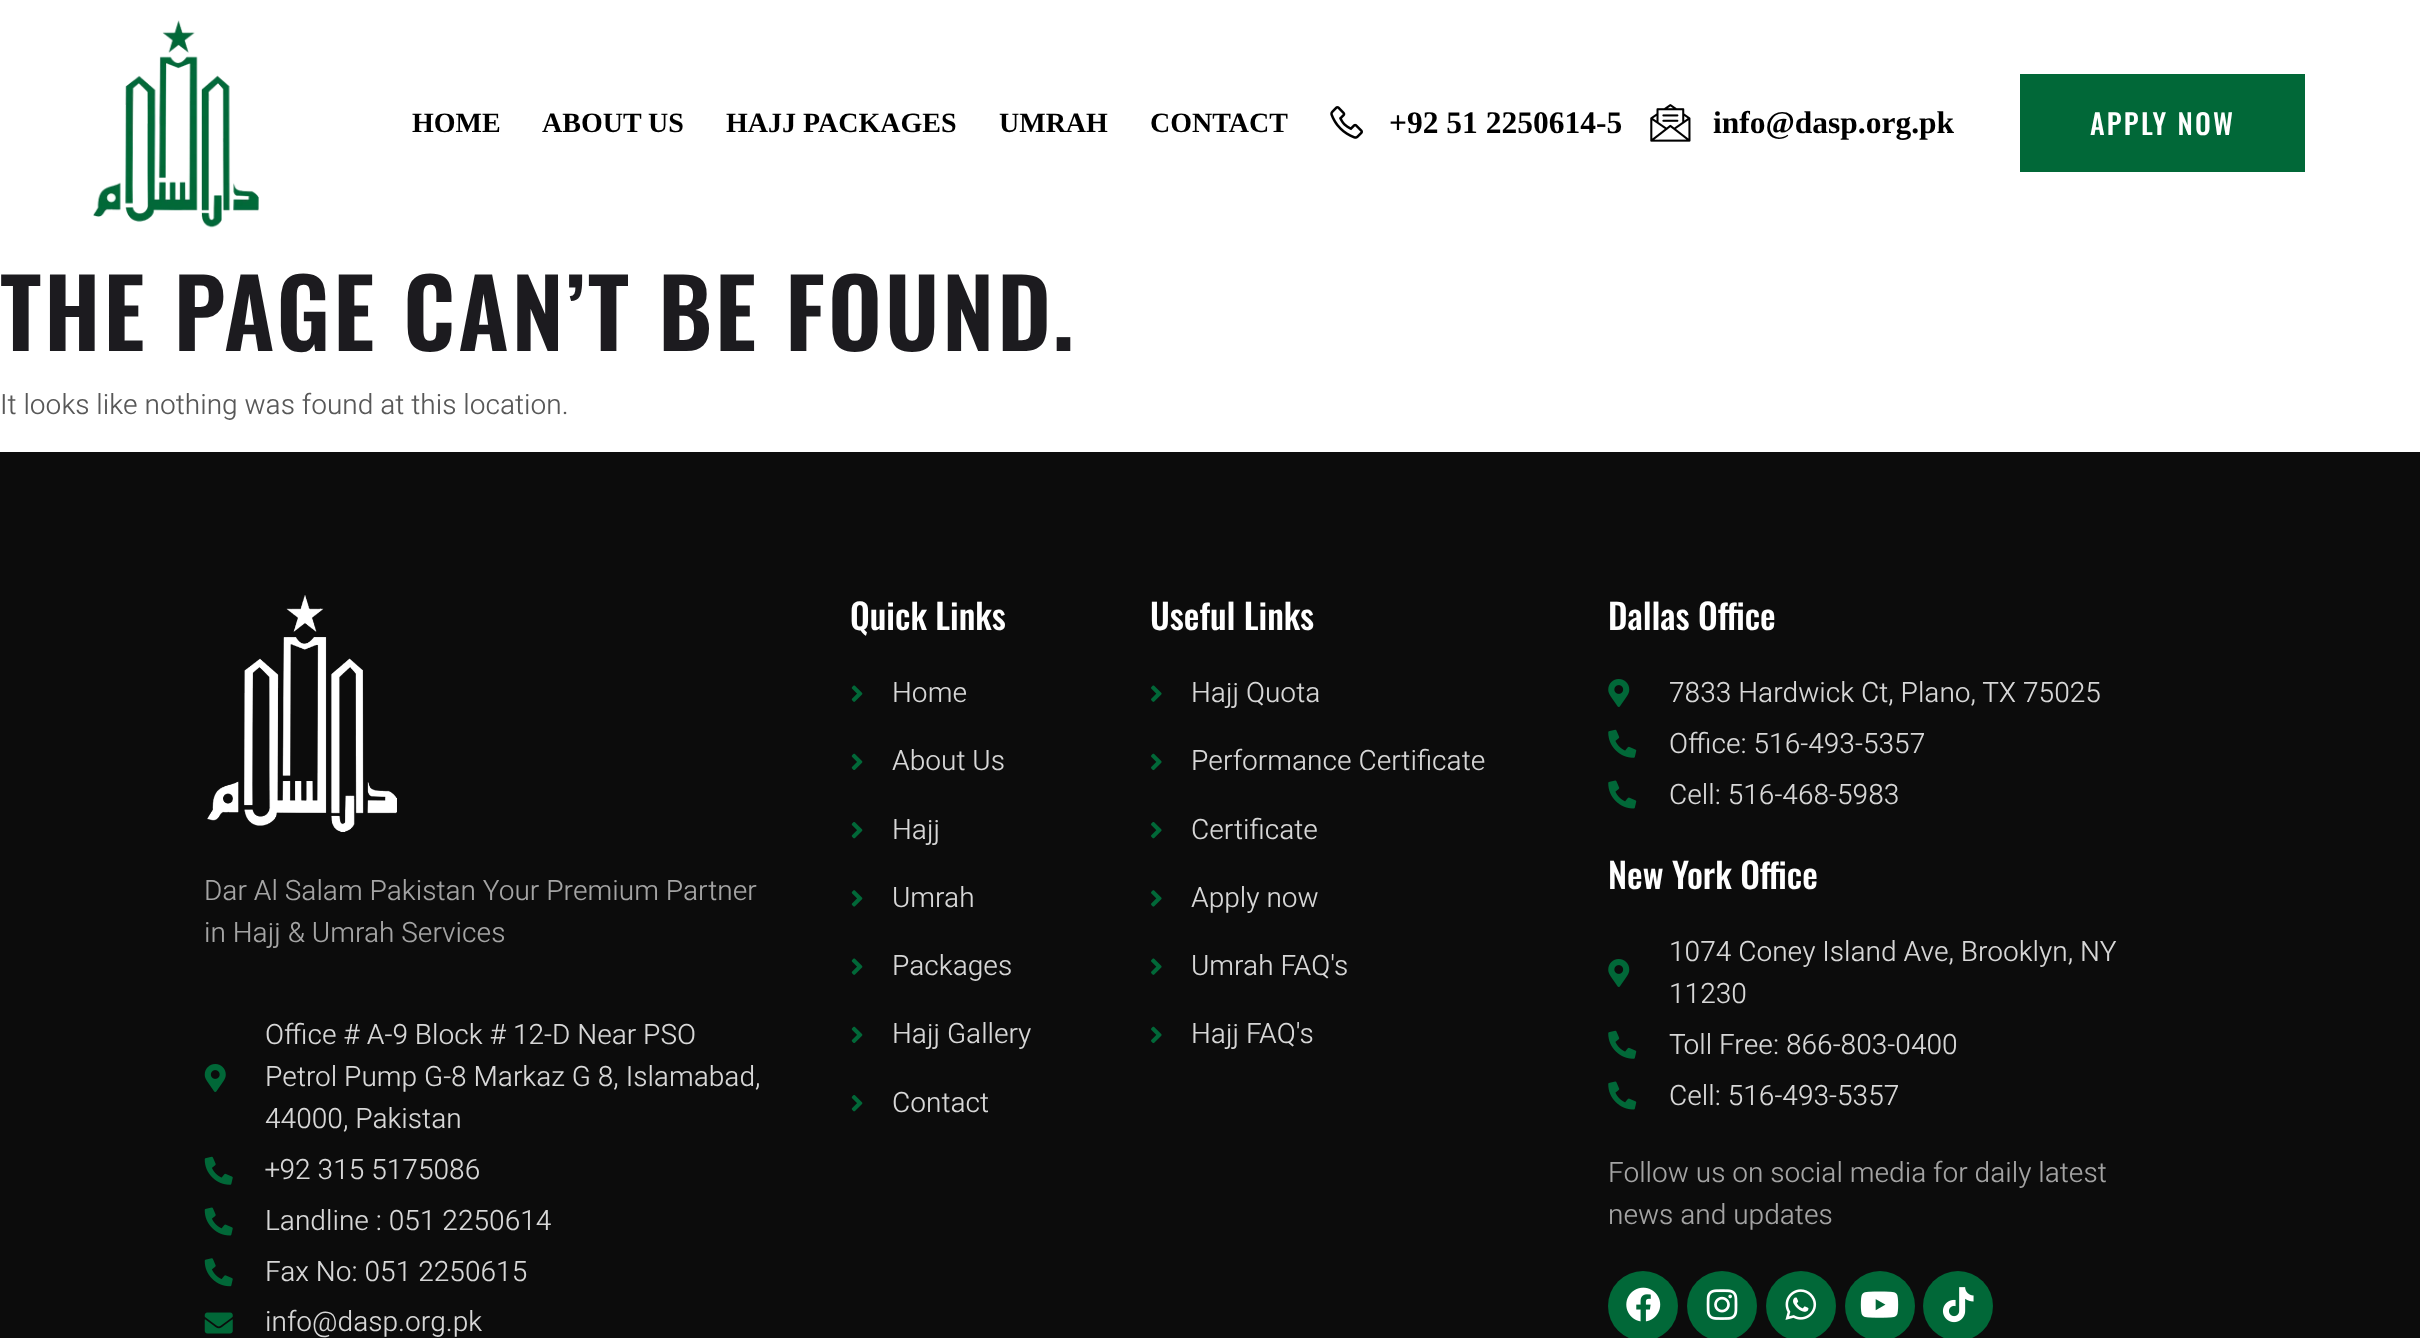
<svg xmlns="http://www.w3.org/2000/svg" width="2420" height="1338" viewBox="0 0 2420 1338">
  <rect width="100%" height="100%" fill="#ffffff"/>
  <image x="93" y="20" width="166" height="208" href="img1.png"/>
  <text x="412" y="132" font-family="Liberation Serif" font-size="28" font-weight="bold" fill="#000000">HOME</text>
  <text x="542" y="132" font-family="Liberation Serif" font-size="28" font-weight="bold" fill="#000000">ABOUT US</text>
  <text x="726" y="132" font-family="Liberation Serif" font-size="28" font-weight="bold" fill="#000000">HAJJ PACKAGES</text>
  <text x="999" y="132" font-family="Liberation Serif" font-size="28" font-weight="bold" fill="#000000">UMRAH</text>
  <text x="1150" y="132" font-family="Liberation Serif" font-size="28" font-weight="bold" fill="#000000">CONTACT</text>
  <image x="1330" y="106" width="33" height="33" href="img2.png"/>
  <text x="1389" y="133" font-family="Liberation Serif" font-size="31.5" font-weight="bold" fill="#000000">+92 51 2250614-5</text>
  <image x="1650" y="104" width="41" height="38" href="img3.png"/>
  <text x="1713" y="133" font-family="Liberation Serif" font-size="31.5" font-weight="bold" fill="#000000">info@dasp.org.pk</text>
  <rect x="2020" y="74" width="285" height="98" fill="#016838"/>
  <text x="2090" y="135" font-family="Oswald" font-size="28" font-weight="500" letter-spacing="2.25" fill="#ffffff">APPLY NOW</text>
  <text x="0" y="351" font-family="Oswald" font-size="94.5" font-weight="600" letter-spacing="2.6" fill="#1c1b1f">THE PAGE CAN’T BE FOUND.</text>
  <text x="0" y="414" font-family="Heebo" font-size="28" font-weight="300" fill="#585858">It looks like nothing was found at this location.</text>
  <rect x="0" y="452" width="2420" height="886" fill="#0c0c0c"/>
  <image x="207" y="595" width="190" height="237" href="img4.png"/>
  <text x="204" y="900" font-family="Heebo" font-size="28" font-weight="300" fill="#a4a4a4">Dar Al Salam Pakistan Your Premium Partner</text>
  <text x="204" y="942" font-family="Heebo" font-size="28" font-weight="300" fill="#a4a4a4">in Hajj &amp; Umrah Services</text>
  <image x="204" y="1064" width="22" height="28" href="img5.png"/>
  <text x="265" y="1044" font-family="Heebo" font-size="28" font-weight="300" fill="#d7d7d7">Office # A-9 Block # 12-D Near PSO</text>
  <text x="265" y="1086" font-family="Heebo" font-size="28" font-weight="300" fill="#d7d7d7">Petrol Pump G-8 Markaz G 8, Islamabad,</text>
  <text x="265" y="1128" font-family="Heebo" font-size="28" font-weight="300" fill="#d7d7d7">44000, Pakistan</text>
  <image x="204" y="1156" width="29" height="29" href="img6.png"/>
  <text x="265" y="1179" font-family="Heebo" font-size="28" font-weight="300" fill="#d7d7d7">+92 315 5175086</text>
  <image x="204" y="1207" width="29" height="29" href="img7.png"/>
  <text x="265" y="1230" font-family="Heebo" font-size="28" font-weight="300" fill="#d7d7d7">Landline : 051 2250614</text>
  <image x="204" y="1258" width="29" height="29" href="img8.png"/>
  <text x="265" y="1281" font-family="Heebo" font-size="28" font-weight="300" fill="#d7d7d7">Fax No: 051 2250615</text>
  <image x="204" y="1312" width="29" height="22" href="img9.png"/>
  <text x="265" y="1331" font-family="Heebo" font-size="28" font-weight="300" fill="#d7d7d7">info@dasp.org.pk</text>
  <text x="850" y="630" font-family="Oswald" font-size="35" font-weight="500" fill="#ffffff">Quick Links</text>
  <image x="851" y="685" width="12" height="17" href="img10.png"/>
  <text x="892" y="702" font-family="Heebo" font-size="28" font-weight="300" fill="#d7d7d7">Home</text>
  <image x="851" y="753" width="12" height="17" href="img11.png"/>
  <text x="892" y="770" font-family="Heebo" font-size="28" font-weight="300" fill="#d7d7d7">About Us</text>
  <image x="851" y="822" width="12" height="17" href="img12.png"/>
  <text x="892" y="839" font-family="Heebo" font-size="28" font-weight="300" fill="#d7d7d7">Hajj</text>
  <image x="851" y="890" width="12" height="17" href="img13.png"/>
  <text x="892" y="907" font-family="Heebo" font-size="28" font-weight="300" fill="#d7d7d7">Umrah</text>
  <image x="851" y="958" width="12" height="17" href="img10.png"/>
  <text x="892" y="975" font-family="Heebo" font-size="28" font-weight="300" fill="#d7d7d7">Packages</text>
  <image x="851" y="1026" width="12" height="17" href="img11.png"/>
  <text x="892" y="1043" font-family="Heebo" font-size="28" font-weight="300" fill="#d7d7d7">Hajj Gallery</text>
  <image x="851" y="1095" width="12" height="17" href="img12.png"/>
  <text x="892" y="1112" font-family="Heebo" font-size="28" font-weight="300" fill="#d7d7d7">Contact</text>
  <text x="1150" y="630" font-family="Oswald" font-size="35" font-weight="500" fill="#ffffff">Useful Links</text>
  <image x="1151" y="685" width="11" height="17" href="img14.png"/>
  <text x="1191" y="702" font-family="Heebo" font-size="28" font-weight="300" fill="#d7d7d7">Hajj Quota</text>
  <image x="1151" y="753" width="11" height="18" href="img15.png"/>
  <text x="1191" y="770" font-family="Heebo" font-size="28" font-weight="300" fill="#d7d7d7">Performance Certificate</text>
  <image x="1151" y="822" width="11" height="17" href="img16.png"/>
  <text x="1191" y="839" font-family="Heebo" font-size="28" font-weight="300" fill="#d7d7d7">Certificate</text>
  <image x="1151" y="890" width="11" height="17" href="img17.png"/>
  <text x="1191" y="907" font-family="Heebo" font-size="28" font-weight="300" fill="#d7d7d7">Apply now</text>
  <image x="1151" y="958" width="11" height="17" href="img14.png"/>
  <text x="1191" y="975" font-family="Heebo" font-size="28" font-weight="300" fill="#d7d7d7">Umrah FAQ's</text>
  <image x="1151" y="1026" width="11" height="18" href="img15.png"/>
  <text x="1191" y="1043" font-family="Heebo" font-size="28" font-weight="300" fill="#d7d7d7">Hajj FAQ's</text>
  <text x="1608" y="630" font-family="Oswald" font-size="35" font-weight="500" fill="#ffffff">Dallas Office</text>
  <image x="1608" y="679" width="22" height="28" href="img18.png"/>
  <text x="1669" y="702" font-family="Heebo" font-size="28" font-weight="300" fill="#d7d7d7">7833 Hardwick Ct, Plano, TX 75025</text>
  <image x="1608" y="729" width="29" height="29" href="img19.png"/>
  <text x="1669" y="753" font-family="Heebo" font-size="28" font-weight="300" fill="#d7d7d7">Office: 516-493-5357</text>
  <image x="1608" y="780" width="29" height="29" href="img20.png"/>
  <text x="1669" y="804" font-family="Heebo" font-size="28" font-weight="300" fill="#d7d7d7">Cell: 516-468-5983</text>
  <text x="1608" y="889" font-family="Oswald" font-size="35" font-weight="500" fill="#ffffff">New York Office</text>
  <image x="1608" y="959" width="22" height="28" href="img18.png"/>
  <text x="1669" y="961" font-family="Heebo" font-size="28" font-weight="300" fill="#d7d7d7">1074 Coney Island Ave, Brooklyn, NY</text>
  <text x="1669" y="1003" font-family="Heebo" font-size="28" font-weight="300" fill="#d7d7d7">11230</text>
  <image x="1608" y="1030" width="29" height="29" href="img19.png"/>
  <text x="1669" y="1054" font-family="Heebo" font-size="28" font-weight="300" fill="#d7d7d7">Toll Free: 866-803-0400</text>
  <image x="1608" y="1081" width="29" height="29" href="img20.png"/>
  <text x="1669" y="1105" font-family="Heebo" font-size="28" font-weight="300" fill="#d7d7d7">Cell: 516-493-5357</text>
  <text x="1608" y="1182" font-family="Heebo" font-size="28" font-weight="300" fill="#a4a4a4">Follow us on social media for daily latest</text>
  <text x="1608" y="1224" font-family="Heebo" font-size="28" font-weight="300" fill="#a4a4a4">news and updates</text>
  <circle cx="1643" cy="1306" r="35" fill="#016838"/>
  <image x="1626" y="1287" width="35" height="35" href="img21.png"/>
  <circle cx="1722" cy="1306" r="35" fill="#016838"/>
  <image x="1706" y="1289" width="32" height="31" href="img22.png"/>
  <circle cx="1801" cy="1306" r="35" fill="#016838"/>
  <image x="1785" y="1289" width="32" height="31" href="img23.png"/>
  <circle cx="1880" cy="1306" r="35" fill="#016838"/>
  <image x="1860" y="1291" width="39" height="27" href="img24.png"/>
  <circle cx="1958" cy="1306" r="35" fill="#016838"/>
  <image x="1942" y="1287" width="32" height="36" href="img25.png"/>
</svg>
